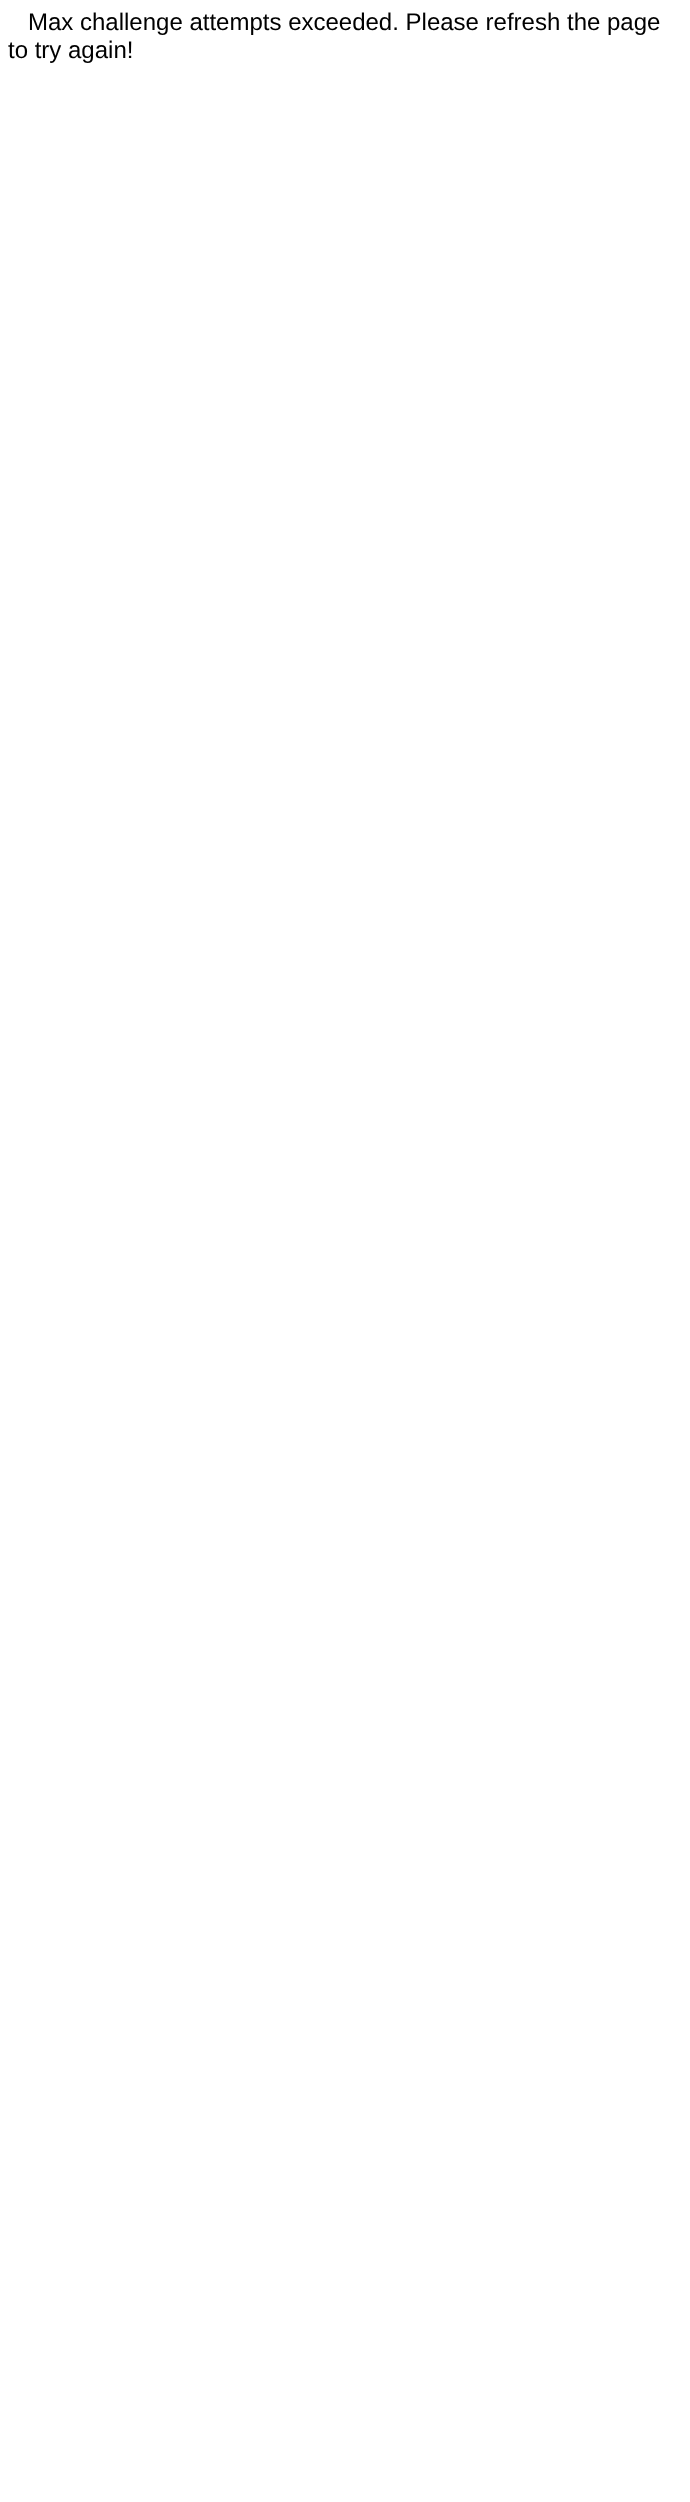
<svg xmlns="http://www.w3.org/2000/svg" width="690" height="2502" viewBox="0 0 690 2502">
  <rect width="100%" height="100%" fill="#ffffff"/>
  <text x="28" y="30" font-family="Liberation Sans" font-size="24" fill="#000000">Max challenge attempts exceeded. Please refresh the page</text>
  <text x="8" y="58" font-family="Liberation Sans" font-size="24" fill="#000000">to try again!</text>
</svg>
